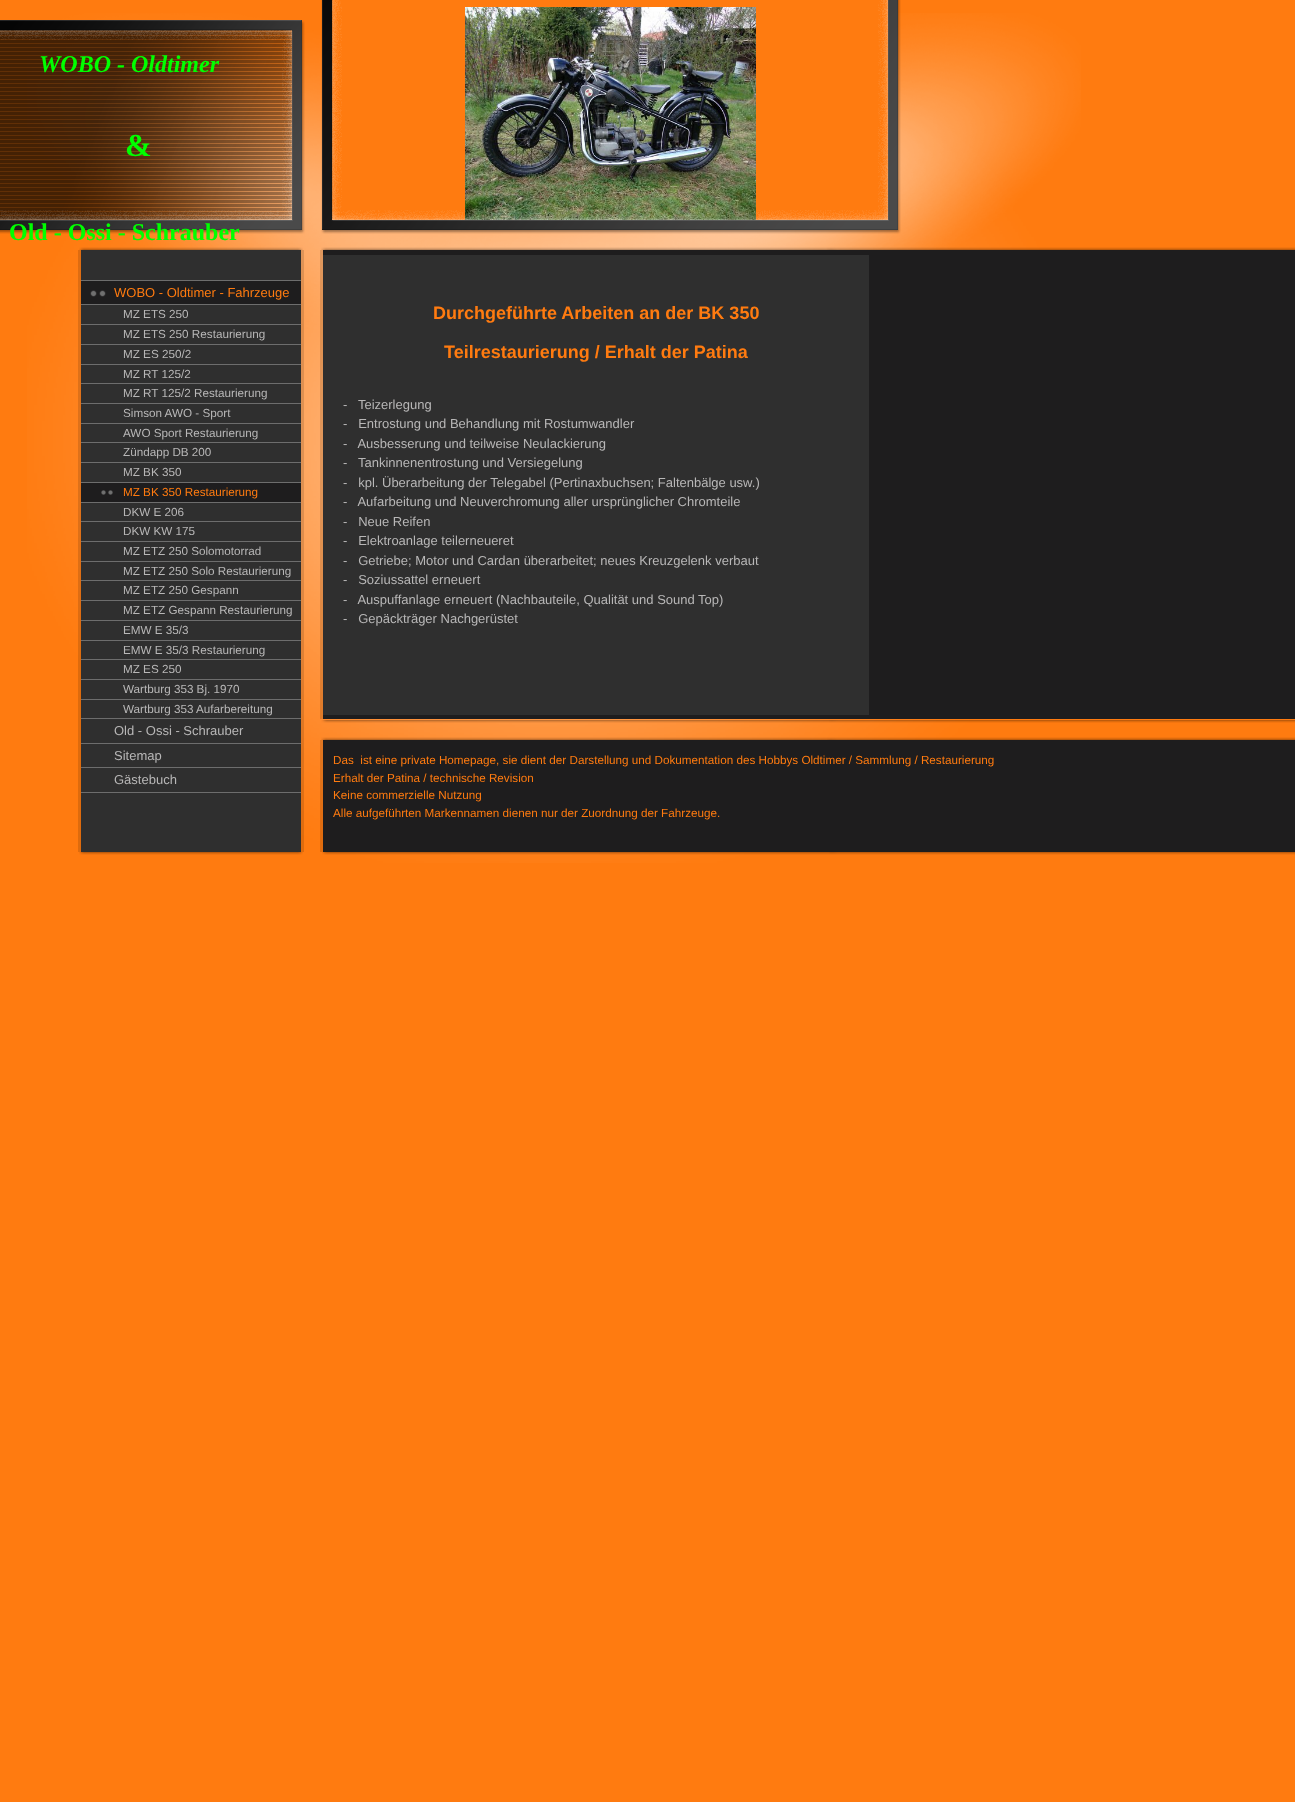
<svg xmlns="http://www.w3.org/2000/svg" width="1295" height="1802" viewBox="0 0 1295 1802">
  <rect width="100%" height="100%" fill="#ff7b10"/>
  <image x="27" y="13" width="1054" height="850" href="img1.png"/>
  <rect x="332" y="13" width="556" height="207" fill="#ff7b10"/>
  <image x="465" y="7" width="291" height="213" href="img3.png"/>
  <image x="0" y="0" width="901" height="234" href="img2.png"/>
  <text x="39" y="72" font-family="Liberation Serif" font-size="24" font-weight="bold" font-style="italic" fill="#00ff00">WOBO - Oldtimer</text>
  <text x="125" y="156" font-family="Liberation Serif" font-size="32" font-weight="bold" fill="#00ff00">&amp;</text>
  <text x="9" y="240" font-family="Liberation Serif" font-size="24" font-weight="bold" fill="#00ff00">Old - Ossi - Schrauber</text>
  <image x="79" y="247" width="224" height="3" href="img4.png"/>
  <image x="321" y="247" width="974" height="3" href="img5.png"/>
  <rect x="78" y="250" width="3" height="602" fill="#000000" fill-opacity="0.13"/>
  <rect x="81" y="250" width="220" height="602" fill="#2f2f2f"/>
  <rect x="81" y="792" width="220" height="1" fill="#6d6d6d"/>
  <rect x="81" y="281" width="220" height="23" fill="#1e1d1e"/>
  <image x="90" y="290" width="16" height="7" href="img6.png"/>
  <rect x="81" y="280" width="220" height="1" fill="#6d6d6d"/>
  <text x="114" y="297" font-family="Liberation Sans" font-size="13" fill="#ff7b10">WOBO - Oldtimer - Fahrzeuge</text>
  <rect x="81" y="304" width="220" height="1" fill="#6d6d6d"/>
  <text x="123" y="318" font-family="Liberation Sans" font-size="11.7" fill="#b8b7b7">MZ ETS 250</text>
  <rect x="81" y="324" width="220" height="1" fill="#6d6d6d"/>
  <text x="123" y="338" font-family="Liberation Sans" font-size="11.7" fill="#b8b7b7">MZ ETS 250 Restaurierung</text>
  <rect x="81" y="344" width="220" height="1" fill="#6d6d6d"/>
  <text x="123" y="358" font-family="Liberation Sans" font-size="11.7" fill="#b8b7b7">MZ ES 250/2</text>
  <rect x="81" y="364" width="220" height="1" fill="#6d6d6d"/>
  <text x="123" y="378" font-family="Liberation Sans" font-size="11.7" fill="#b8b7b7">MZ RT 125/2</text>
  <rect x="81" y="383" width="220" height="1" fill="#6d6d6d"/>
  <text x="123" y="397" font-family="Liberation Sans" font-size="11.7" fill="#b8b7b7">MZ RT 125/2 Restaurierung</text>
  <rect x="81" y="403" width="220" height="1" fill="#6d6d6d"/>
  <text x="123" y="417" font-family="Liberation Sans" font-size="11.7" fill="#b8b7b7">Simson AWO - Sport</text>
  <rect x="81" y="423" width="220" height="1" fill="#6d6d6d"/>
  <text x="123" y="437" font-family="Liberation Sans" font-size="11.7" fill="#b8b7b7">AWO Sport Restaurierung</text>
  <rect x="81" y="442" width="220" height="1" fill="#6d6d6d"/>
  <text x="123" y="456" font-family="Liberation Sans" font-size="11.7" fill="#b8b7b7">Zündapp DB 200</text>
  <rect x="81" y="462" width="220" height="1" fill="#6d6d6d"/>
  <text x="123" y="476" font-family="Liberation Sans" font-size="11.7" fill="#b8b7b7">MZ BK 350</text>
  <rect x="81" y="483" width="220" height="19" fill="#1e1d1e"/>
  <image x="101" y="490" width="12" height="5" href="img7.png"/>
  <rect x="81" y="482" width="220" height="1" fill="#6d6d6d"/>
  <text x="123" y="496" font-family="Liberation Sans" font-size="11.7" fill="#ff7b10">MZ BK 350 Restaurierung</text>
  <rect x="81" y="502" width="220" height="1" fill="#6d6d6d"/>
  <text x="123" y="516" font-family="Liberation Sans" font-size="11.7" fill="#b8b7b7">DKW E 206</text>
  <rect x="81" y="521" width="220" height="1" fill="#6d6d6d"/>
  <text x="123" y="535" font-family="Liberation Sans" font-size="11.7" fill="#b8b7b7">DKW KW 175</text>
  <rect x="81" y="541" width="220" height="1" fill="#6d6d6d"/>
  <text x="123" y="555" font-family="Liberation Sans" font-size="11.7" fill="#b8b7b7">MZ ETZ 250 Solomotorrad</text>
  <rect x="81" y="561" width="220" height="1" fill="#6d6d6d"/>
  <text x="123" y="575" font-family="Liberation Sans" font-size="11.7" fill="#b8b7b7">MZ ETZ 250 Solo Restaurierung</text>
  <rect x="81" y="580" width="220" height="1" fill="#6d6d6d"/>
  <text x="123" y="594" font-family="Liberation Sans" font-size="11.7" fill="#b8b7b7">MZ ETZ 250 Gespann</text>
  <rect x="81" y="600" width="220" height="1" fill="#6d6d6d"/>
  <text x="123" y="614" font-family="Liberation Sans" font-size="11.7" fill="#b8b7b7">MZ ETZ Gespann Restaurierung</text>
  <rect x="81" y="620" width="220" height="1" fill="#6d6d6d"/>
  <text x="123" y="634" font-family="Liberation Sans" font-size="11.7" fill="#b8b7b7">EMW E 35/3</text>
  <rect x="81" y="640" width="220" height="1" fill="#6d6d6d"/>
  <text x="123" y="654" font-family="Liberation Sans" font-size="11.7" fill="#b8b7b7">EMW E 35/3 Restaurierung</text>
  <rect x="81" y="659" width="220" height="1" fill="#6d6d6d"/>
  <text x="123" y="673" font-family="Liberation Sans" font-size="11.7" fill="#b8b7b7">MZ ES 250</text>
  <rect x="81" y="679" width="220" height="1" fill="#6d6d6d"/>
  <text x="123" y="693" font-family="Liberation Sans" font-size="11.7" fill="#b8b7b7">Wartburg 353 Bj. 1970</text>
  <rect x="81" y="699" width="220" height="1" fill="#6d6d6d"/>
  <text x="123" y="713" font-family="Liberation Sans" font-size="11.7" fill="#b8b7b7">Wartburg 353 Aufarbereitung</text>
  <rect x="81" y="718" width="220" height="1" fill="#6d6d6d"/>
  <text x="114" y="735" font-family="Liberation Sans" font-size="13" fill="#b8b7b7">Old - Ossi - Schrauber</text>
  <rect x="81" y="743" width="220" height="1" fill="#6d6d6d"/>
  <text x="114" y="760" font-family="Liberation Sans" font-size="13" fill="#b8b7b7">Sitemap</text>
  <rect x="81" y="767" width="220" height="1" fill="#6d6d6d"/>
  <text x="114" y="784" font-family="Liberation Sans" font-size="13" fill="#b8b7b7">Gästebuch</text>
  <rect x="301" y="250" width="3" height="602" fill="#000000" fill-opacity="0.13"/>
  <rect x="320" y="250" width="3" height="469" fill="#000000" fill-opacity="0.12"/>
  <rect x="323" y="250" width="972" height="469" fill="#1e1d1e"/>
  <rect x="323" y="255" width="546" height="460" fill="#2f2f2f"/>
  <text x="433" y="319" font-family="Liberation Sans" font-size="18" font-weight="bold" fill="#ff7b10">Durchgeführte Arbeiten an der BK 350</text>
  <text x="444" y="358" font-family="Liberation Sans" font-size="18" font-weight="bold" fill="#ff7b10">Teilrestaurierung / Erhalt der Patina</text>
  <text x="343" y="409" font-family="Liberation Sans" font-size="13" fill="#b8b7b7" xml:space="preserve">-   Teizerlegung</text>
  <text x="343" y="428" font-family="Liberation Sans" font-size="13" fill="#b8b7b7" xml:space="preserve">-   Entrostung und Behandlung mit Rostumwandler</text>
  <text x="343" y="448" font-family="Liberation Sans" font-size="13" fill="#b8b7b7" xml:space="preserve">-   Ausbesserung und teilweise Neulackierung</text>
  <text x="343" y="467" font-family="Liberation Sans" font-size="13" fill="#b8b7b7" xml:space="preserve">-   Tankinnenentrostung und Versiegelung</text>
  <text x="343" y="487" font-family="Liberation Sans" font-size="13" fill="#b8b7b7" xml:space="preserve">-   kpl. Überarbeitung der Telegabel (Pertinaxbuchsen; Faltenbälge usw.)</text>
  <text x="343" y="506" font-family="Liberation Sans" font-size="13" fill="#b8b7b7" xml:space="preserve">-   Aufarbeitung und Neuverchromung aller ursprünglicher Chromteile</text>
  <text x="343" y="526" font-family="Liberation Sans" font-size="13" fill="#b8b7b7" xml:space="preserve">-   Neue Reifen</text>
  <text x="343" y="545" font-family="Liberation Sans" font-size="13" fill="#b8b7b7" xml:space="preserve">-   Elektroanlage teilerneueret</text>
  <text x="343" y="565" font-family="Liberation Sans" font-size="13" fill="#b8b7b7" xml:space="preserve">-   Getriebe; Motor und Cardan überarbeitet; neues Kreuzgelenk verbaut</text>
  <text x="343" y="584" font-family="Liberation Sans" font-size="13" fill="#b8b7b7" xml:space="preserve">-   Soziussattel erneuert</text>
  <text x="343" y="604" font-family="Liberation Sans" font-size="13" fill="#b8b7b7" xml:space="preserve">-   Auspuffanlage erneuert (Nachbauteile, Qualität und Sound Top)</text>
  <text x="343" y="623" font-family="Liberation Sans" font-size="13" fill="#b8b7b7" xml:space="preserve">-   Gepäckträger Nachgerüstet</text>
  <image x="321" y="720" width="974" height="20" href="img8.png"/>
  <rect x="320" y="740" width="3" height="112" fill="#000000" fill-opacity="0.12"/>
  <rect x="323" y="740" width="972" height="112" fill="#1e1d1e"/>
  <text x="333" y="764" font-family="Liberation Sans" font-size="11.7" fill="#ff7b10" xml:space="preserve">Das  ist eine private Homepage, sie dient der Darstellung und Dokumentation des Hobbys Oldtimer / Sammlung / Restaurierung</text>
  <text x="333" y="782" font-family="Liberation Sans" font-size="11.7" fill="#ff7b10">Erhalt der Patina / technische Revision</text>
  <text x="333" y="799" font-family="Liberation Sans" font-size="11.7" fill="#ff7b10">Keine commerzielle Nutzung</text>
  <text x="333" y="817" font-family="Liberation Sans" font-size="11.7" fill="#ff7b10">Alle aufgeführten Markennamen dienen nur der Zuordnung der Fahrzeuge.</text>
  <image x="79" y="852" width="224" height="3" href="img9.png"/>
  <image x="322" y="852" width="973" height="3" href="img10.png"/>
</svg>
